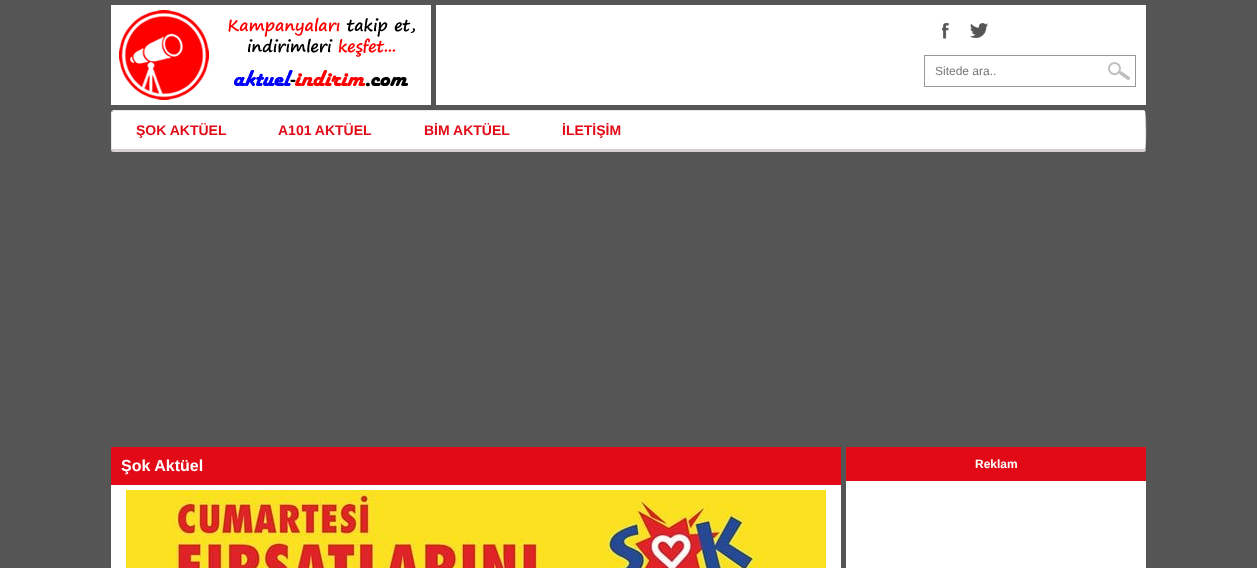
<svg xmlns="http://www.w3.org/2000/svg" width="1257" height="568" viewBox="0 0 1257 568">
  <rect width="100%" height="100%" fill="#555555"/>
  <rect x="111" y="5" width="320" height="100" fill="#ffffff"/>
  <image x="119" y="10" width="296" height="90" href="img1.png"/>
  <rect x="436" y="5" width="710" height="100" fill="#ffffff"/>
  <image x="942" y="23" width="7" height="16" href="img2.png"/>
  <image x="970" y="23" width="18" height="15" href="img3.png"/>
  <image x="1108" y="62" width="22" height="18" href="img4.png"/>
  <rect x="924.5" y="55.5" width="211" height="31" fill="none" stroke="#999999"/>
  <text x="935" y="75" font-family="Liberation Sans" font-size="12" fill="#777777">Sitede ara..</text>
  <path d="M113 111H1144C1145 111 1145 111 1145 112V149H112V112Z" fill="#ffffff"/>
  <path d="M113 110L112 111V112L113 111H1145L1144 110Z" fill="#ece6e8"/>
  <path d="M1146 150C1146 145 1147 112 1145 111C1146 112 1144 146 1146 151Z" fill="#ece6e8"/>
  <path d="M113 152H1144L1146 151L1145 149H112L111 151Z" fill="#d9ced2"/>
  <path d="M111 112V151L112 149V112V111Z" fill="#ece6e8"/>
  <text x="136" y="135" font-family="Liberation Sans" font-size="14" font-weight="bold" fill="#e20a17">ŞOK AKTÜEL</text>
  <text x="278" y="135" font-family="Liberation Sans" font-size="14" font-weight="bold" fill="#e20a17">A101 AKTÜEL</text>
  <text x="424" y="135" font-family="Liberation Sans" font-size="14" font-weight="bold" fill="#e20a17">BİM AKTÜEL</text>
  <text x="562" y="135" font-family="Liberation Sans" font-size="14" font-weight="bold" fill="#e20a17">İLETİŞİM</text>
  <rect x="111" y="485" width="730" height="83" fill="#ffffff"/>
  <rect x="111" y="447" width="730" height="38" fill="#e20a17"/>
  <text x="121" y="471" font-family="Liberation Sans" font-size="16" font-weight="bold" fill="#ffffff">Şok Aktüel</text>
  <image x="126" y="490" width="700" height="78" href="img5.png"/>
  <rect x="846" y="481" width="300" height="87" fill="#ffffff"/>
  <rect x="846" y="447" width="300" height="34" fill="#e20a17"/>
  <text x="975" y="468" font-family="Liberation Sans" font-size="12" font-weight="bold" fill="#ffffff">Reklam</text>
</svg>
